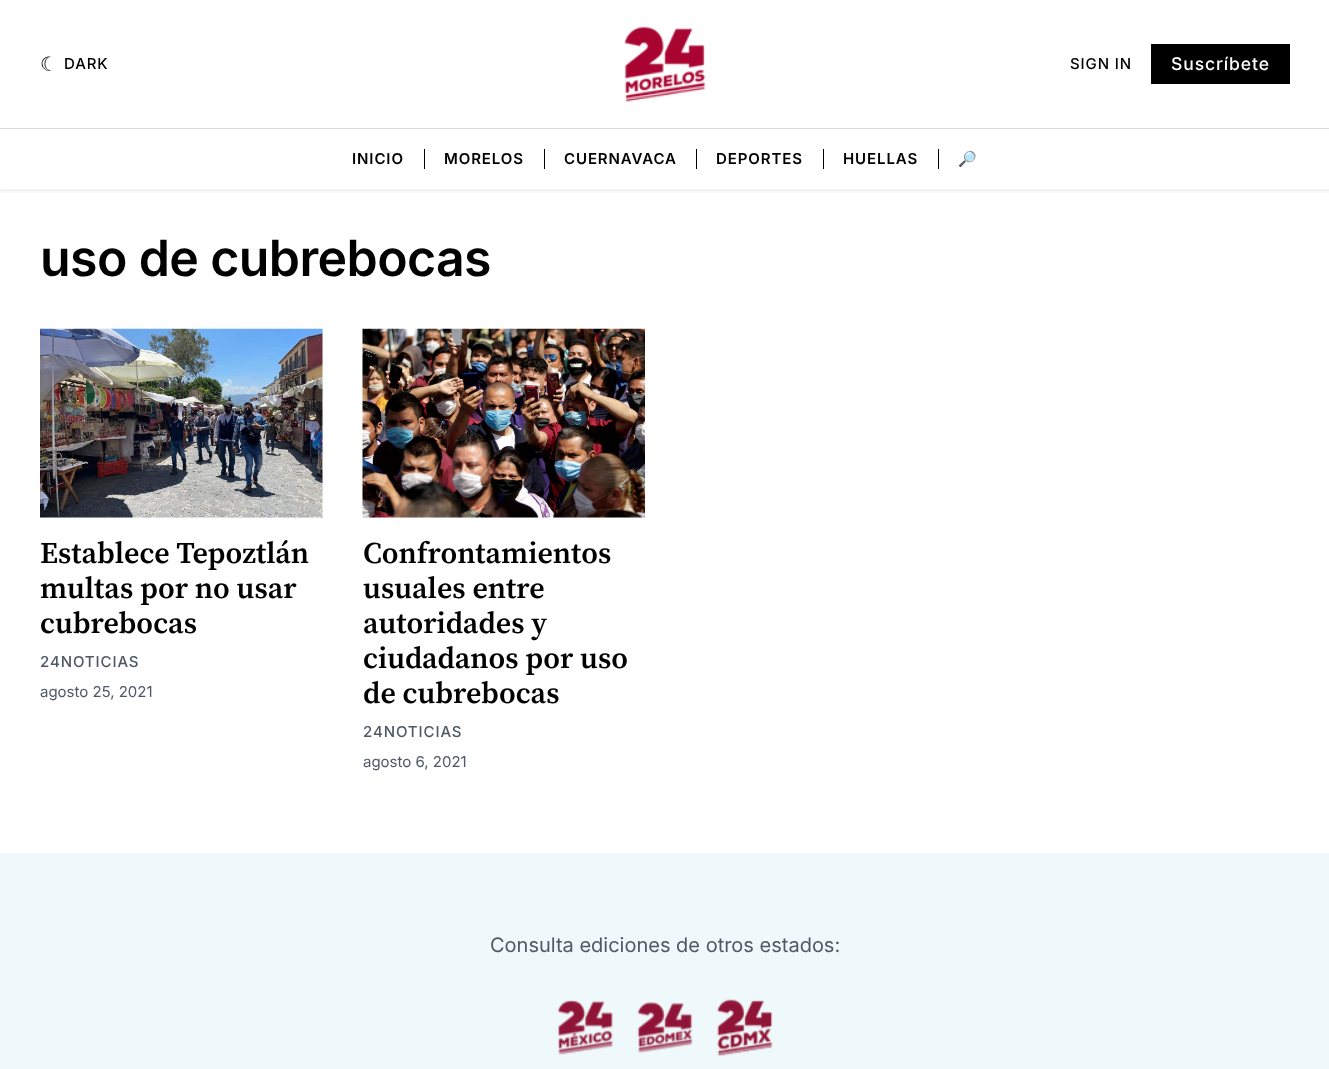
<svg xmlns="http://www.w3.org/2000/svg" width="1329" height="1069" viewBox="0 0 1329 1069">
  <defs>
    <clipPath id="clip1"><rect x="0" y="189" width="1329" height="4"/></clipPath>
    <filter id="blur1" x="-50%" y="-200%" width="200%" height="500%"><feGaussianBlur stdDeviation="2.5"/></filter>
  </defs>
  <rect width="100%" height="100%" fill="#ffffff"/>
  <g clip-path="url(#clip1)">
    <rect x="-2" y="-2" width="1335" height="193" fill="#000000" fill-opacity="0.08" filter="url(#blur1)"/>
  </g>
  <rect x="0" y="128" width="1329" height="1" fill="#d9d9d9"/>
  <text x="40" y="71" font-family="DejaVu Sans" font-size="20" letter-spacing="0.9" fill="#000000">☾</text>
  <text x="64" y="69" font-family="Inter" font-size="15" font-weight="500" letter-spacing="0.9" fill="#000000">DARK</text>
  <image x="624" y="26" width="82" height="76" href="img1.png"/>
  <text x="1070" y="69" font-family="Inter" font-size="15" font-weight="500" letter-spacing="0.9" fill="#000000">SIGN IN</text>
  <rect x="1151" y="44" width="139" height="40" fill="#000000"/>
  <text x="1171" y="70" font-family="Inter" font-size="17.5" font-weight="500" letter-spacing="0.9" fill="#ffffff">Suscríbete</text>
  <text x="352" y="164" font-family="Inter" font-size="15" font-weight="600" letter-spacing="0.9" fill="#000000">INICIO</text>
  <rect x="424" y="149" width="1" height="20" fill="#000000"/>
  <text x="444" y="164" font-family="Inter" font-size="15" font-weight="600" letter-spacing="0.9" fill="#000000">MORELOS</text>
  <rect x="544" y="149" width="1" height="20" fill="#000000"/>
  <text x="564" y="164" font-family="Inter" font-size="15" font-weight="600" letter-spacing="0.9" fill="#000000">CUERNAVACA</text>
  <rect x="696" y="149" width="1" height="20" fill="#000000"/>
  <text x="716" y="164" font-family="Inter" font-size="15" font-weight="600" letter-spacing="0.9" fill="#000000">DEPORTES</text>
  <rect x="823" y="149" width="1" height="20" fill="#000000"/>
  <text x="843" y="164" font-family="Inter" font-size="15" font-weight="600" letter-spacing="0.9" fill="#000000">HUELLAS</text>
  <rect x="938" y="149" width="1" height="20" fill="#000000"/>
  <text x="958" y="164" font-family="Noto Color Emoji" font-size="15" font-weight="bold" letter-spacing="0.9" fill="#000000">🔎</text>
  <text x="40" y="276" font-family="Inter" font-size="50" font-weight="600" letter-spacing="-0.6" fill="#000000">uso de cubrebocas</text>
  <rect x="40" y="329" width="283" height="189" fill="#eff8fa"/>
  <image x="40" y="328" width="283" height="190" href="img2.png"/>
  <text x="40" y="563" font-family="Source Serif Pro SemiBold" font-size="30" font-weight="600" fill="#000000">Establece Tepoztlán</text>
  <text x="40" y="598" font-family="Source Serif Pro SemiBold" font-size="30" font-weight="600" fill="#000000">multas por no usar</text>
  <text x="40" y="633" font-family="Source Serif Pro SemiBold" font-size="30" font-weight="600" fill="#000000">cubrebocas</text>
  <text x="40" y="667" font-family="Inter" font-size="15" font-weight="500" letter-spacing="0.9" fill="#4e5965">24NOTICIAS</text>
  <text x="40" y="697" font-family="Inter" font-size="15" fill="#4e5965">agosto 25, 2021</text>
  <rect x="363" y="517" width="282" height="1" fill="#eff8fa"/>
  <image x="362" y="328" width="283" height="190" href="img3.png"/>
  <text x="363" y="563" font-family="Source Serif Pro SemiBold" font-size="30" font-weight="600" fill="#000000">Confrontamientos</text>
  <text x="363" y="598" font-family="Source Serif Pro SemiBold" font-size="30" font-weight="600" fill="#000000">usuales entre</text>
  <text x="363" y="633" font-family="Source Serif Pro SemiBold" font-size="30" font-weight="600" fill="#000000">autoridades y</text>
  <text x="363" y="668" font-family="Source Serif Pro SemiBold" font-size="30" font-weight="600" fill="#000000">ciudadanos por uso</text>
  <text x="363" y="703" font-family="Source Serif Pro SemiBold" font-size="30" font-weight="600" fill="#000000">de cubrebocas</text>
  <text x="363" y="737" font-family="Inter" font-size="15" font-weight="500" letter-spacing="0.9" fill="#4e5965">24NOTICIAS</text>
  <text x="363" y="767" font-family="Inter" font-size="15" fill="#4e5965">agosto 6, 2021</text>
  <rect x="0" y="853" width="1329" height="216" fill="#eff8fa"/>
  <text x="490" y="952" font-family="Inter" font-size="20" fill="#4e5965">Consulta ediciones de otros estados:</text>
  <image x="557" y="1000" width="56" height="55" href="img4.png"/>
  <image x="637" y="1002" width="56" height="51" href="img5.png"/>
  <image x="717" y="999" width="56" height="58" href="img6.png"/>
</svg>
